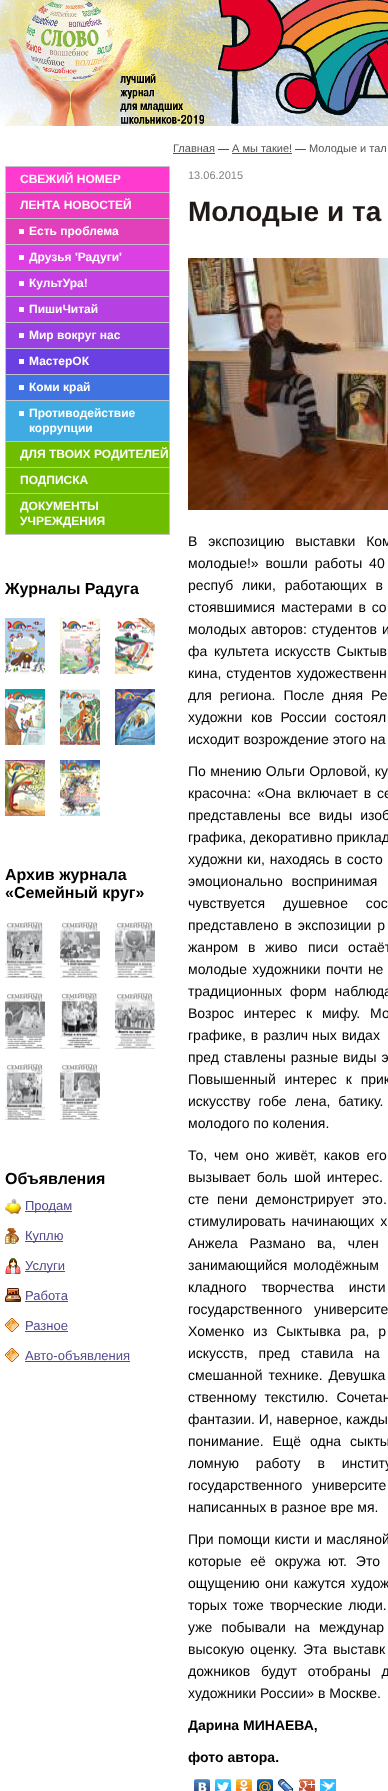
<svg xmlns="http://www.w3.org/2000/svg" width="388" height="1791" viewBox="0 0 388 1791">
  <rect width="100%" height="100%" fill="#ffffff"/>
  <image x="0" y="0" width="388" height="126" href="img1.png"/>
  <rect x="5" y="166" width="165" height="1" fill="#c3c2ca"/>
  <rect x="169" y="166" width="1" height="369" fill="#c3c2ca"/>
  <rect x="5" y="166" width="1" height="369" fill="#c3c2ca"/>
  <rect x="6" y="167" width="163" height="25" fill="#ff3ace"/>
  <rect x="6" y="192" width="163" height="1" fill="#c3c2ca"/>
  <text x="20" y="183" font-family="Liberation Sans" font-size="12" font-weight="bold" fill="#ffffff">СВЕЖИЙ НОМЕР</text>
  <rect x="6" y="193" width="163" height="25" fill="#ef3bc2"/>
  <rect x="6" y="218" width="163" height="1" fill="#c3c2ca"/>
  <text x="20" y="209" font-family="Liberation Sans" font-size="12" font-weight="bold" fill="#ffffff">ЛЕНТА НОВОСТЕЙ</text>
  <rect x="6" y="219" width="163" height="25" fill="#e240ba"/>
  <rect x="19" y="229" width="5" height="5" fill="#ffffff"/>
  <rect x="6" y="244" width="163" height="1" fill="#c3c2ca"/>
  <text x="29" y="235" font-family="Liberation Sans" font-size="12" font-weight="bold" fill="#ffffff">Есть проблема</text>
  <rect x="6" y="245" width="163" height="25" fill="#dc40e2"/>
  <rect x="19" y="255" width="5" height="5" fill="#ffffff"/>
  <rect x="6" y="270" width="163" height="1" fill="#c3c2ca"/>
  <text x="29" y="261" font-family="Liberation Sans" font-size="12" font-weight="bold" fill="#ffffff">Друзья 'Радуги'</text>
  <rect x="6" y="271" width="163" height="25" fill="#c540e2"/>
  <rect x="19" y="281" width="5" height="5" fill="#ffffff"/>
  <rect x="6" y="296" width="163" height="1" fill="#c3c2ca"/>
  <text x="29" y="287" font-family="Liberation Sans" font-size="12" font-weight="bold" fill="#ffffff">КультУра!</text>
  <rect x="6" y="297" width="163" height="25" fill="#b640e2"/>
  <rect x="19" y="307" width="5" height="5" fill="#ffffff"/>
  <rect x="6" y="322" width="163" height="1" fill="#c3c2ca"/>
  <text x="29" y="313" font-family="Liberation Sans" font-size="12" font-weight="bold" fill="#ffffff">ПишиЧитай</text>
  <rect x="6" y="323" width="163" height="25" fill="#9b40e2"/>
  <rect x="19" y="333" width="5" height="5" fill="#ffffff"/>
  <rect x="6" y="348" width="163" height="1" fill="#c3c2ca"/>
  <text x="29" y="339" font-family="Liberation Sans" font-size="12" font-weight="bold" fill="#ffffff">Мир вокруг нас</text>
  <rect x="6" y="349" width="163" height="25" fill="#6a40e2"/>
  <rect x="19" y="359" width="5" height="5" fill="#ffffff"/>
  <rect x="6" y="374" width="163" height="1" fill="#c3c2ca"/>
  <text x="29" y="365" font-family="Liberation Sans" font-size="12" font-weight="bold" fill="#ffffff">МастерОК</text>
  <rect x="6" y="375" width="163" height="25" fill="#4072e2"/>
  <rect x="19" y="385" width="5" height="5" fill="#ffffff"/>
  <rect x="6" y="400" width="163" height="1" fill="#c3c2ca"/>
  <text x="29" y="391" font-family="Liberation Sans" font-size="12" font-weight="bold" fill="#ffffff">Коми край</text>
  <rect x="6" y="401" width="163" height="40" fill="#40abe2"/>
  <rect x="19" y="411" width="5" height="5" fill="#ffffff"/>
  <rect x="6" y="441" width="163" height="1" fill="#c3c2ca"/>
  <text x="29" y="417" font-family="Liberation Sans" font-size="12" font-weight="bold" fill="#ffffff">Противодействие</text>
  <text x="29" y="432" font-family="Liberation Sans" font-size="12" font-weight="bold" fill="#ffffff">коррупции</text>
  <rect x="6" y="442" width="163" height="25" fill="#6fbd00"/>
  <rect x="6" y="467" width="163" height="1" fill="#c3c2ca"/>
  <text x="20" y="458" font-family="Liberation Sans" font-size="12" font-weight="bold" fill="#ffffff">ДЛЯ ТВОИХ РОДИТЕЛЕЙ</text>
  <rect x="6" y="468" width="163" height="25" fill="#6fbd00"/>
  <rect x="6" y="493" width="163" height="1" fill="#c3c2ca"/>
  <text x="20" y="484" font-family="Liberation Sans" font-size="12" font-weight="bold" fill="#ffffff">ПОДПИСКА</text>
  <rect x="6" y="494" width="163" height="40" fill="#6fbd00"/>
  <rect x="6" y="534" width="163" height="1" fill="#c3c2ca"/>
  <text x="20" y="510" font-family="Liberation Sans" font-size="12" font-weight="bold" fill="#ffffff">ДОКУМЕНТЫ</text>
  <text x="20" y="525" font-family="Liberation Sans" font-size="12" font-weight="bold" fill="#ffffff">УЧРЕЖДЕНИЯ</text>
  <text x="5" y="594" font-family="Liberation Sans" font-size="16" font-weight="bold" fill="#000000">Журналы Радуга</text>
  <image x="5" y="618" width="40" height="56" href="img2.png"/>
  <image x="60" y="618" width="40" height="56" href="img3.png"/>
  <image x="115" y="618" width="40" height="56" href="img4.png"/>
  <image x="5" y="689" width="40" height="56" href="img5.png"/>
  <image x="60" y="689" width="40" height="56" href="img6.png"/>
  <image x="115" y="689" width="40" height="56" href="img7.png"/>
  <image x="5" y="760" width="40" height="56" href="img8.png"/>
  <image x="60" y="760" width="40" height="56" href="img9.png"/>
  <text x="5" y="880" font-family="Liberation Sans" font-size="16" font-weight="bold" fill="#000000">Архив журнала</text>
  <text x="5" y="898" font-family="Liberation Sans" font-size="16" font-weight="bold" fill="#000000">«Семейный круг»</text>
  <image x="5" y="922" width="40" height="56" href="img10.png"/>
  <image x="60" y="922" width="40" height="56" href="img11.png"/>
  <image x="115" y="922" width="40" height="56" href="img12.png"/>
  <image x="5" y="993" width="40" height="56" href="img13.png"/>
  <image x="60" y="993" width="40" height="56" href="img14.png"/>
  <image x="115" y="993" width="40" height="56" href="img15.png"/>
  <image x="5" y="1064" width="40" height="56" href="img16.png"/>
  <image x="60" y="1064" width="40" height="56" href="img17.png"/>
  <text x="5" y="1184" font-family="Liberation Sans" font-size="16" font-weight="bold" fill="#000000">Объявления</text>
  <image x="5" y="1198" width="16" height="16" href="img18.png"/>
  <rect x="25" y="1211" width="47" height="1" fill="#50498e"/>
  <text x="25" y="1210" font-family="Liberation Sans" font-size="13" fill="#50498e">Продам</text>
  <image x="5" y="1228" width="14" height="16" href="img19.png"/>
  <rect x="25" y="1241" width="38" height="1" fill="#50498e"/>
  <text x="25" y="1240" font-family="Liberation Sans" font-size="13" fill="#50498e">Куплю</text>
  <image x="5" y="1258" width="16" height="16" href="img20.png"/>
  <rect x="25" y="1271" width="40" height="1" fill="#50498e"/>
  <text x="25" y="1270" font-family="Liberation Sans" font-size="13" fill="#50498e">Услуги</text>
  <image x="5" y="1288" width="16" height="14" href="img21.png"/>
  <text x="25" y="1300" font-family="Liberation Sans" font-size="13" fill="#50498e">Работа</text>
  <rect x="25" y="1301" width="43" height="1" fill="#50498e"/>
  <image x="5" y="1318" width="14" height="14" href="img22.png"/>
  <text x="25" y="1330" font-family="Liberation Sans" font-size="13" fill="#50498e">Разное</text>
  <rect x="25" y="1331" width="43" height="1" fill="#50498e"/>
  <image x="5" y="1348" width="14" height="14" href="img22.png"/>
  <text x="25" y="1360" font-family="Liberation Sans" font-size="13" fill="#50498e">Авто-объявления</text>
  <rect x="25" y="1361" width="105" height="1" fill="#50498e"/>
  <text x="173" y="152" font-family="Liberation Sans" font-size="11" fill="#515151">Главная</text>
  <rect x="173" y="153" width="42" height="1" fill="#515151"/>
  <rect x="218" y="149" width="11" height="1" fill="#515151"/>
  <text x="232" y="152" font-family="Liberation Sans" font-size="11" fill="#515151">А мы такие!</text>
  <rect x="232" y="153" width="60" height="1" fill="#515151"/>
  <rect x="295" y="149" width="11" height="1" fill="#515151"/>
  <text x="309" y="152" font-family="Liberation Sans" font-size="11" fill="#515151">Молодые и тал</text>
  <text x="188" y="179" font-family="Liberation Sans" font-size="11" fill="#828282">13.06.2015</text>
  <text x="188" y="221" font-family="Liberation Sans" font-size="28" font-weight="bold" fill="#1f1a17">Молодые и та</text>
  <image x="188" y="258" width="200" height="252" href="img23.png"/>
  <text x="188" y="546" word-spacing="7" font-family="Liberation Sans" font-size="14" fill="#000000">В экспозицию выставки Ком</text>
  <text x="188" y="568" word-spacing="3" font-family="Liberation Sans" font-size="14" fill="#000000">молодые!» вошли работы 40</text>
  <text x="188" y="590" font-family="Liberation Sans" font-size="14" fill="#000000">респуб</text>
  <text x="242" y="590" word-spacing="5" font-family="Liberation Sans" font-size="14" fill="#000000">лики, работающих в</text>
  <text x="188" y="612" word-spacing="2" font-family="Liberation Sans" font-size="14" fill="#000000">стоявшимися мастерами в со</text>
  <text x="188" y="634" word-spacing="1" font-family="Liberation Sans" font-size="14" fill="#000000">молодых авторов: студентов и</text>
  <text x="188" y="656" font-family="Liberation Sans" font-size="14" fill="#000000">фа</text>
  <text x="214" y="656" word-spacing="2" font-family="Liberation Sans" font-size="14" fill="#000000">культета искусств Сыктыв</text>
  <text x="188" y="678" word-spacing="1" font-family="Liberation Sans" font-size="14" fill="#000000">кина, студентов художественн</text>
  <text x="188" y="700" word-spacing="4" font-family="Liberation Sans" font-size="14" fill="#000000">для региона. После</text>
  <text x="332" y="700" word-spacing="4" font-family="Liberation Sans" font-size="14" fill="#000000">дняя Ре</text>
  <text x="188" y="722" font-family="Liberation Sans" font-size="14" fill="#000000">художни</text>
  <text x="251" y="722" word-spacing="4" font-family="Liberation Sans" font-size="14" fill="#000000">ков России состоял</text>
  <text x="188" y="744" font-family="Liberation Sans" font-size="14" fill="#000000">исходит возрождение этого на</text>
  <text x="188" y="776" word-spacing="0.5" font-family="Liberation Sans" font-size="14" fill="#000000">По мнению Ольги Орловой, ку</text>
  <text x="188" y="798" word-spacing="2" font-family="Liberation Sans" font-size="14" fill="#000000">красочна: «Она включает в се</text>
  <text x="188" y="820" word-spacing="4" font-family="Liberation Sans" font-size="14" fill="#000000">представлены все виды изоб</text>
  <text x="188" y="842" font-family="Liberation Sans" font-size="14" fill="#000000">графика, декоративно приклад</text>
  <text x="188" y="864" font-family="Liberation Sans" font-size="14" fill="#000000">художни</text>
  <text x="247" y="864" word-spacing="1" font-family="Liberation Sans" font-size="14" fill="#000000">ки, находясь в состо</text>
  <text x="188" y="886" word-spacing="5" font-family="Liberation Sans" font-size="14" fill="#000000">эмоционально воспринимая</text>
  <text x="188" y="908" word-spacing="14" font-family="Liberation Sans" font-size="14" fill="#000000">чувствуется душевное сос</text>
  <text x="188" y="930" word-spacing="2" font-family="Liberation Sans" font-size="14" fill="#000000">представлено в экспозиции р</text>
  <text x="188" y="952" word-spacing="6" font-family="Liberation Sans" font-size="14" fill="#000000">жанром в живо</text>
  <text x="308" y="952" word-spacing="6" font-family="Liberation Sans" font-size="14" fill="#000000">писи остаёт</text>
  <text x="188" y="974" word-spacing="1.5" font-family="Liberation Sans" font-size="14" fill="#000000">молодые художники почти не</text>
  <text x="188" y="996" word-spacing="4" font-family="Liberation Sans" font-size="14" fill="#000000">традиционных форм наблюда</text>
  <text x="188" y="1018" word-spacing="6" font-family="Liberation Sans" font-size="14" fill="#000000">Возрос интерес к мифу. Мо</text>
  <text x="188" y="1040" word-spacing="1" font-family="Liberation Sans" font-size="14" fill="#000000">графике, в различ</text>
  <text x="312" y="1040" word-spacing="1" font-family="Liberation Sans" font-size="14" fill="#000000">ных видах</text>
  <text x="188" y="1062" font-family="Liberation Sans" font-size="14" fill="#000000">пред</text>
  <text x="224" y="1062" word-spacing="1" font-family="Liberation Sans" font-size="14" fill="#000000">ставлены разные виды э</text>
  <text x="188" y="1084" word-spacing="5" font-family="Liberation Sans" font-size="14" fill="#000000">Повышенный интерес к прик</text>
  <text x="188" y="1106" word-spacing="4" font-family="Liberation Sans" font-size="14" fill="#000000">искусству гобе</text>
  <text x="295" y="1106" word-spacing="4" font-family="Liberation Sans" font-size="14" fill="#000000">лена, батику.</text>
  <text x="188" y="1128" font-family="Liberation Sans" font-size="14" fill="#000000">молодого по коления.</text>
  <text x="188" y="1160" word-spacing="3" font-family="Liberation Sans" font-size="14" fill="#000000">То, чем оно живёт, каков его</text>
  <text x="188" y="1182" word-spacing="2" font-family="Liberation Sans" font-size="14" fill="#000000">вызывает боль</text>
  <text x="294" y="1182" word-spacing="2" font-family="Liberation Sans" font-size="14" fill="#000000">шой интерес.</text>
  <text x="188" y="1204" font-family="Liberation Sans" font-size="14" fill="#000000">сте</text>
  <text x="217" y="1204" word-spacing="4" font-family="Liberation Sans" font-size="14" fill="#000000">пени демонстрирует это.</text>
  <text x="188" y="1226" word-spacing="2" font-family="Liberation Sans" font-size="14" fill="#000000">стимулировать начинающих х</text>
  <text x="188" y="1248" word-spacing="8" font-family="Liberation Sans" font-size="14" fill="#000000">Анжела Размано</text>
  <text x="317" y="1248" word-spacing="8" font-family="Liberation Sans" font-size="14" fill="#000000">ва, член</text>
  <text x="188" y="1270" word-spacing="2" font-family="Liberation Sans" font-size="14" fill="#000000">занимающийся молодёжным</text>
  <text x="188" y="1292" word-spacing="11" font-family="Liberation Sans" font-size="14" fill="#000000">кладного творчества инсти</text>
  <text x="188" y="1314" word-spacing="8" font-family="Liberation Sans" font-size="14" fill="#000000">государственного университе</text>
  <text x="188" y="1336" word-spacing="5" font-family="Liberation Sans" font-size="14" fill="#000000">Хоменко из Сыктывка</text>
  <text x="350" y="1336" word-spacing="5" font-family="Liberation Sans" font-size="14" fill="#000000">ра, р</text>
  <text x="188" y="1358" word-spacing="7" font-family="Liberation Sans" font-size="14" fill="#000000">искусств, пред</text>
  <text x="301" y="1358" word-spacing="7" font-family="Liberation Sans" font-size="14" fill="#000000">ставила на</text>
  <text x="188" y="1380" word-spacing="2" font-family="Liberation Sans" font-size="14" fill="#000000">смешанной технике. Девушка</text>
  <text x="188" y="1402" word-spacing="4" font-family="Liberation Sans" font-size="14" fill="#000000">ственному текстилю. Сочетан</text>
  <text x="188" y="1424" font-family="Liberation Sans" font-size="14" fill="#000000">фантазии. И, наверное, кажды</text>
  <text x="188" y="1446" word-spacing="5" font-family="Liberation Sans" font-size="14" fill="#000000">понимание. Ещё одна сыкты</text>
  <text x="188" y="1468" word-spacing="13" font-family="Liberation Sans" font-size="14" fill="#000000">ломную работу в институ</text>
  <text x="188" y="1490" word-spacing="6" font-family="Liberation Sans" font-size="14" fill="#000000">государственного университе</text>
  <text x="188" y="1512" font-family="Liberation Sans" font-size="14" fill="#000000">написанных в разное вре мя.</text>
  <text x="188" y="1544" word-spacing="0.5" font-family="Liberation Sans" font-size="14" fill="#000000">При помощи кисти и масляной</text>
  <text x="188" y="1566" word-spacing="5" font-family="Liberation Sans" font-size="14" fill="#000000">которые её окружа</text>
  <text x="328" y="1566" word-spacing="5" font-family="Liberation Sans" font-size="14" fill="#000000">ют. Это</text>
  <text x="188" y="1588" word-spacing="1.5" font-family="Liberation Sans" font-size="14" fill="#000000">ощущению они кажутся худож</text>
  <text x="188" y="1610" word-spacing="2" font-family="Liberation Sans" font-size="14" fill="#000000">торых тоже творческие люди.</text>
  <text x="188" y="1632" word-spacing="5" font-family="Liberation Sans" font-size="14" fill="#000000">уже побывали на междунар</text>
  <text x="188" y="1654" word-spacing="2" font-family="Liberation Sans" font-size="14" fill="#000000">высокую оценку. Эта выставк</text>
  <text x="188" y="1676" word-spacing="7" font-family="Liberation Sans" font-size="14" fill="#000000">дожников будут отобраны д</text>
  <text x="188" y="1698" font-family="Liberation Sans" font-size="14" fill="#000000">художники России» в Москве.</text>
  <text x="188" y="1730" font-family="Liberation Sans" font-size="14" font-weight="bold" fill="#000000">Дарина МИНАЕВА,</text>
  <text x="188" y="1762" font-family="Liberation Sans" font-size="14" font-weight="bold" fill="#000000">фото автора.</text>
  <image x="194" y="1779" width="16" height="12" href="img24.png"/>
  <image x="215" y="1779" width="16" height="12" href="img25.png"/>
  <image x="236" y="1779" width="16" height="12" href="img26.png"/>
  <image x="257" y="1779" width="16" height="12" href="img27.png"/>
  <image x="278" y="1779" width="15" height="12" href="img28.png"/>
  <image x="299" y="1779" width="16" height="12" href="img29.png"/>
  <image x="320" y="1779" width="16" height="12" href="img30.png"/>
</svg>
